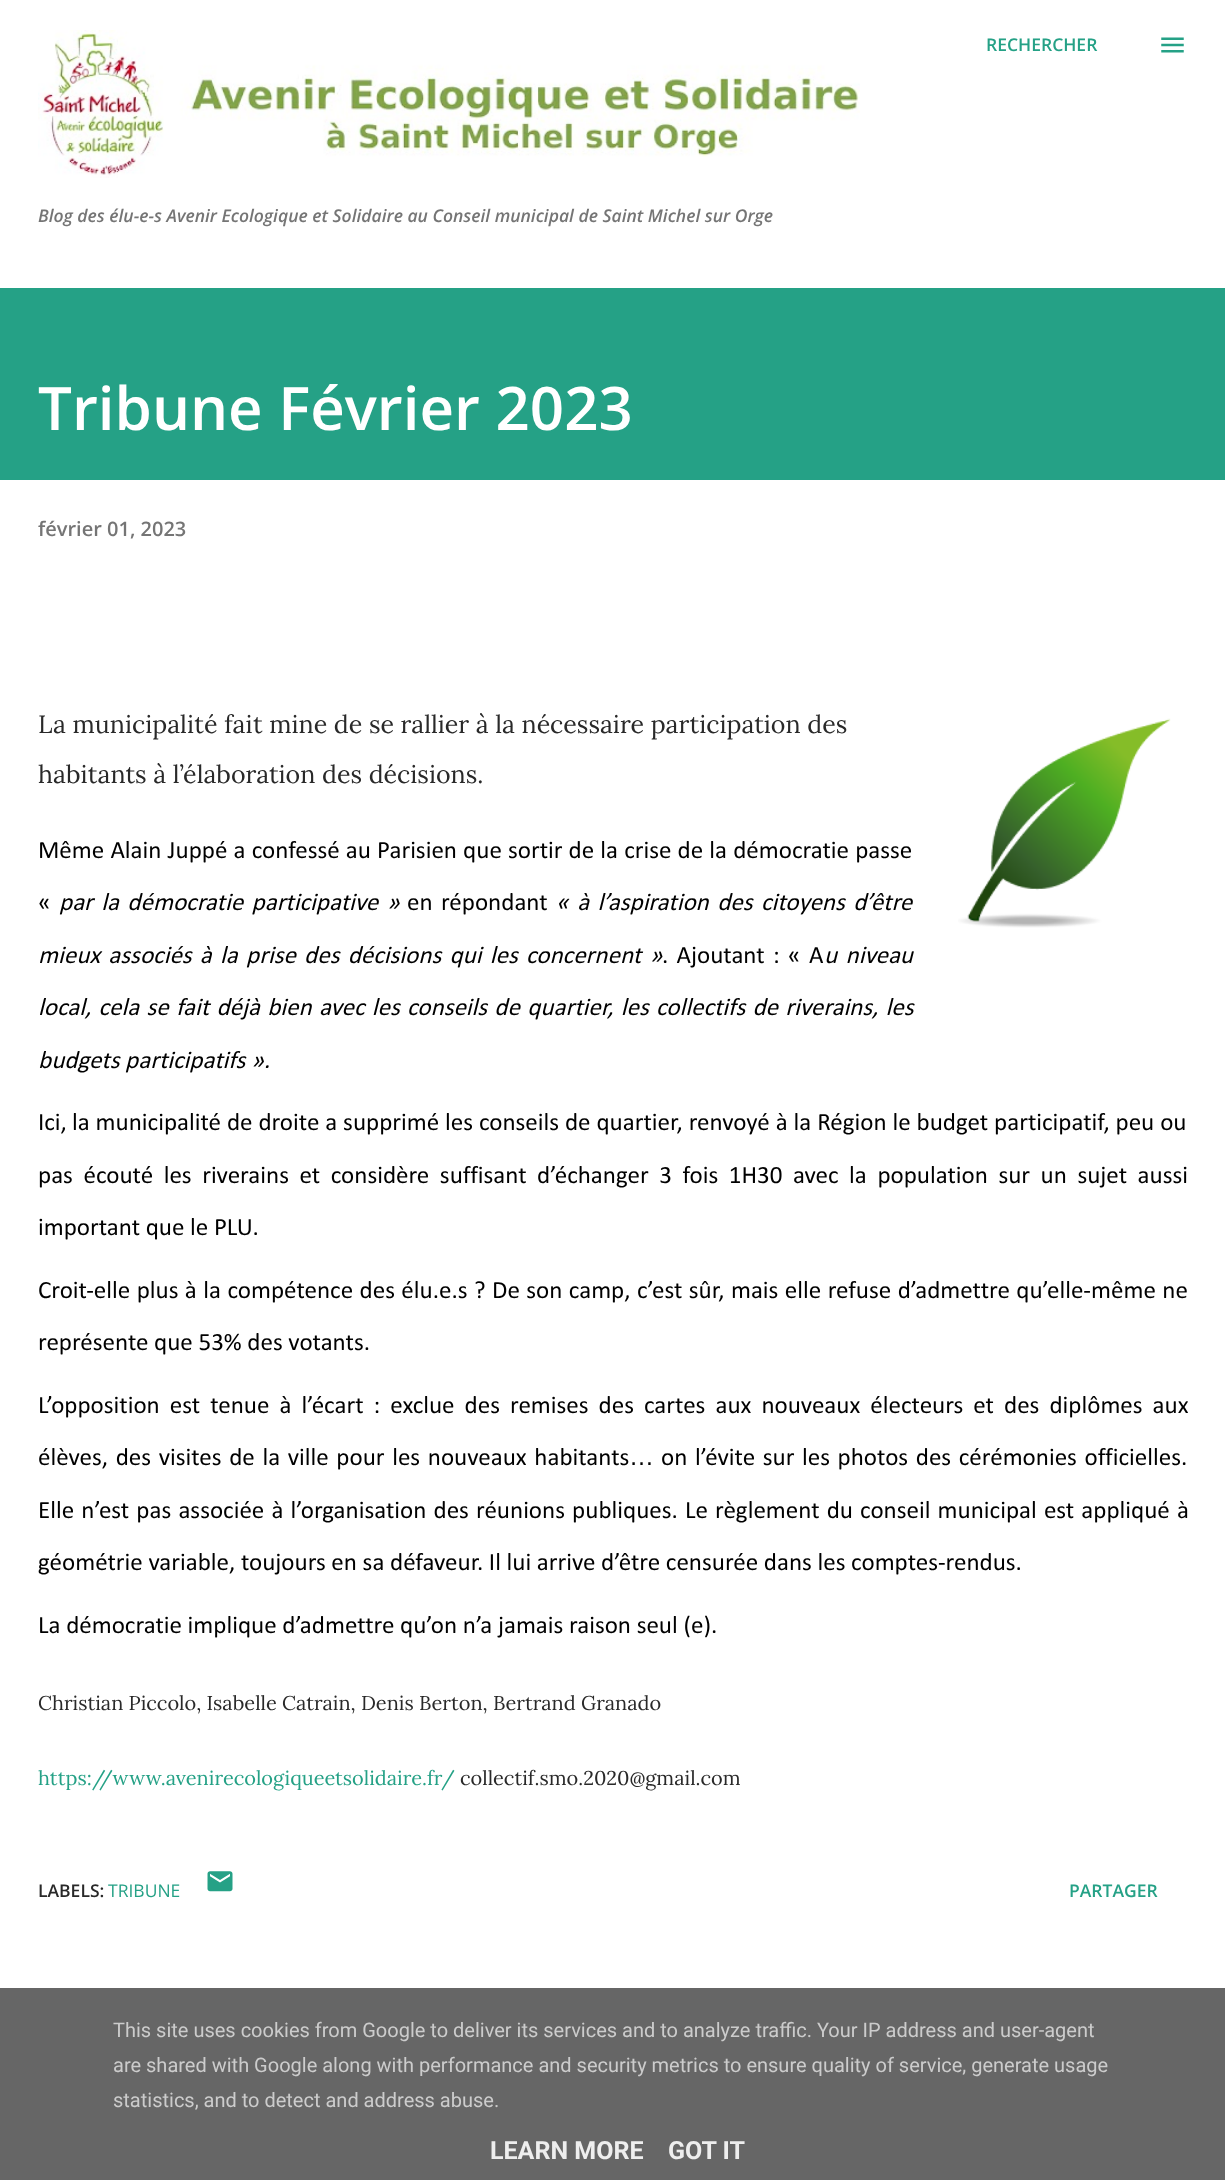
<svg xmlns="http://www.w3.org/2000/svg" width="1225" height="2180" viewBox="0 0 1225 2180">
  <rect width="100%" height="100%" fill="#ffffff"/>
  <text x="986" y="51" font-family="Open Sans" font-size="17.5" font-weight="600" fill="#25a186">RECHERCHER</text>
  <image x="38" y="30" width="822" height="148" href="img1.png"/>
  <text x="38" y="222" font-family="Open Sans" font-size="17.5" font-weight="600" font-style="italic" fill="#757575">Blog des élu-e-s Avenir Ecologique et Solidaire au Conseil municipal de Saint Michel sur Orge</text>
  <image x="1161" y="37" width="23" height="16" href="img2.png"/>
  <rect x="0" y="288" width="1225" height="192" fill="#25a186"/>
  <text x="38" y="430" font-family="Open Sans" font-size="60" font-weight="600" fill="#ffffff">Tribune Février 2023</text>
  <text x="38" y="536" font-family="Open Sans" font-size="20" font-weight="600" fill="#757575">février 01, 2023</text>
  <text x="38" y="733" font-family="Lora" font-size="25" fill="#292929">La municipalité fait mine de se rallier à la nécessaire participation des</text>
  <image x="958" y="718" width="213" height="210" href="img3.png"/>
  <text x="38" y="783" font-family="Lora" font-size="25" fill="#292929">habitants à l’élaboration des décisions.</text>
  <text x="38" y="858" word-spacing="0.5" font-family="Calibri" font-size="25" fill="#000000">Même Alain Juppé a confessé au Parisien que sortir de la crise de la démocratie passe</text>
  <text x="38" y="910" font-family="Calibri" font-size="25" fill="#000000">«</text>
  <text x="59" y="910" word-spacing="2.75" font-family="Calibri" font-size="25" font-style="italic" fill="#000000">par la démocratie participative »</text>
  <text x="407" y="910" word-spacing="2.75" font-family="Calibri" font-size="25" fill="#000000">en répondant</text>
  <text x="556" y="910" word-spacing="2.75" font-family="Calibri" font-size="25" font-style="italic" fill="#000000">« à l’aspiration des citoyens d’être</text>
  <text x="38" y="963" word-spacing="2.6" font-family="Calibri" font-size="25" font-style="italic" fill="#000000">mieux associés à la prise des décisions qui les concernent »</text>
  <text x="662" y="963" word-spacing="2.6" font-family="Calibri" font-size="25" fill="#000000">. Ajoutant : « A</text>
  <text x="824" y="963" word-spacing="2.75" font-family="Calibri" font-size="25" font-style="italic" fill="#000000">u niveau</text>
  <text x="38" y="1015" word-spacing="1.6" font-family="Calibri" font-size="25" font-style="italic" fill="#000000">local, cela se fait déjà bien avec les conseils de quartier, les collectifs de riverains, les</text>
  <text x="38" y="1068" font-family="Calibri" font-size="25" font-style="italic" fill="#000000">budgets participatifs ».</text>
  <text x="38" y="1130" font-family="Calibri" font-size="25" fill="#000000">Ici,</text>
  <text x="72" y="1130" word-spacing="0.25" font-family="Calibri" font-size="25" fill="#000000">la municipalité de droite a supprimé les conseils de quartier, renvoyé à la Région le budget participatif, peu ou</text>
  <text x="38" y="1183" word-spacing="4.9" font-family="Calibri" font-size="25" fill="#000000">pas écouté les riverains et considère suffisant d’échanger 3 fois 1H30 avec la population sur un sujet aussi</text>
  <text x="38" y="1235" font-family="Calibri" font-size="25" fill="#000000">important que le PLU.</text>
  <text x="38" y="1298" word-spacing="0.8" font-family="Calibri" font-size="25" fill="#000000">Croit-elle plus à la compétence des élu.e.s ? De son camp, c’est sûr, mais elle refuse d’admettre qu’elle-même ne</text>
  <text x="38" y="1350" font-family="Calibri" font-size="25" fill="#000000">représente que 53% des votants.</text>
  <text x="38" y="1413" word-spacing="4.4" font-family="Calibri" font-size="25" fill="#000000">L’opposition est tenue à l’écart : exclue des remises des cartes aux nouveaux électeurs et des diplômes aux</text>
  <text x="38" y="1465" word-spacing="2" font-family="Calibri" font-size="25" fill="#000000">élèves, des visites de la ville pour les nouveaux habitants</text>
  <text x="629" y="1465" font-family="Liberation Sans" font-size="25" fill="#000000">…</text>
  <text x="661" y="1465" word-spacing="2" font-family="Calibri" font-size="25" fill="#000000">on l’évite sur les photos des cérémonies officielles.</text>
  <text x="38" y="1518" word-spacing="1.5" font-family="Calibri" font-size="25" fill="#000000">Elle n’est pas associée à l’organisation des réunions publiques. Le règlement du conseil municipal est appliqué à</text>
  <text x="38" y="1570" font-family="Calibri" font-size="25" fill="#000000">géométrie variable, toujours en sa défaveur. Il lui arrive d’être censurée dans les comptes-rendus.</text>
  <text x="38" y="1633" font-family="Calibri" font-size="25" fill="#000000">La démocratie implique d’admettre qu’on n’a jamais raison seul (e).</text>
  <text x="38" y="1710" font-family="Lora" font-size="20" fill="#292929">Christian Piccolo, Isabelle Catrain, Denis Berton, Bertrand Granado</text>
  <text x="38" y="1785" font-family="Lora" font-size="20" fill="#25a186">https://www.avenirecologiqueetsolidaire.fr/</text>
  <text x="460" y="1785" font-family="Lora" font-size="20" fill="#292929">collectif.smo.2020@gmail.com</text>
  <text x="38" y="1897" font-family="Open Sans" font-size="17.5" font-weight="600" fill="#292929">LABELS:</text>
  <text x="108" y="1897" font-family="Open Sans" font-size="17.5" fill="#25a186">TRIBUNE</text>
  <image x="207" y="1871" width="26" height="21" href="img4.png"/>
  <text x="1069" y="1897" font-family="Open Sans" font-size="17.5" font-weight="600" fill="#25a186">PARTAGER</text>
  <rect x="0" y="1988" width="1225" height="192" fill="#666666"/>
  <text x="113" y="2037" font-family="Roboto" font-size="20" fill="#cccccc">This site uses cookies from Google to deliver its services and to analyze traffic. Your IP address and user-agent</text>
  <text x="113" y="2072" font-family="Roboto" font-size="20" fill="#cccccc">are shared with Google along with performance and security metrics to ensure quality of service, generate usage</text>
  <text x="113" y="2107" font-family="Roboto" font-size="20" fill="#cccccc">statistics, and to detect and address abuse.</text>
  <text x="490" y="2159" font-family="Roboto" font-size="25" font-weight="bold" fill="#eeeeee">LEARN MORE</text>
  <text x="668" y="2159" font-family="Roboto" font-size="25" font-weight="bold" fill="#eeeeee">GOT IT</text>
</svg>
